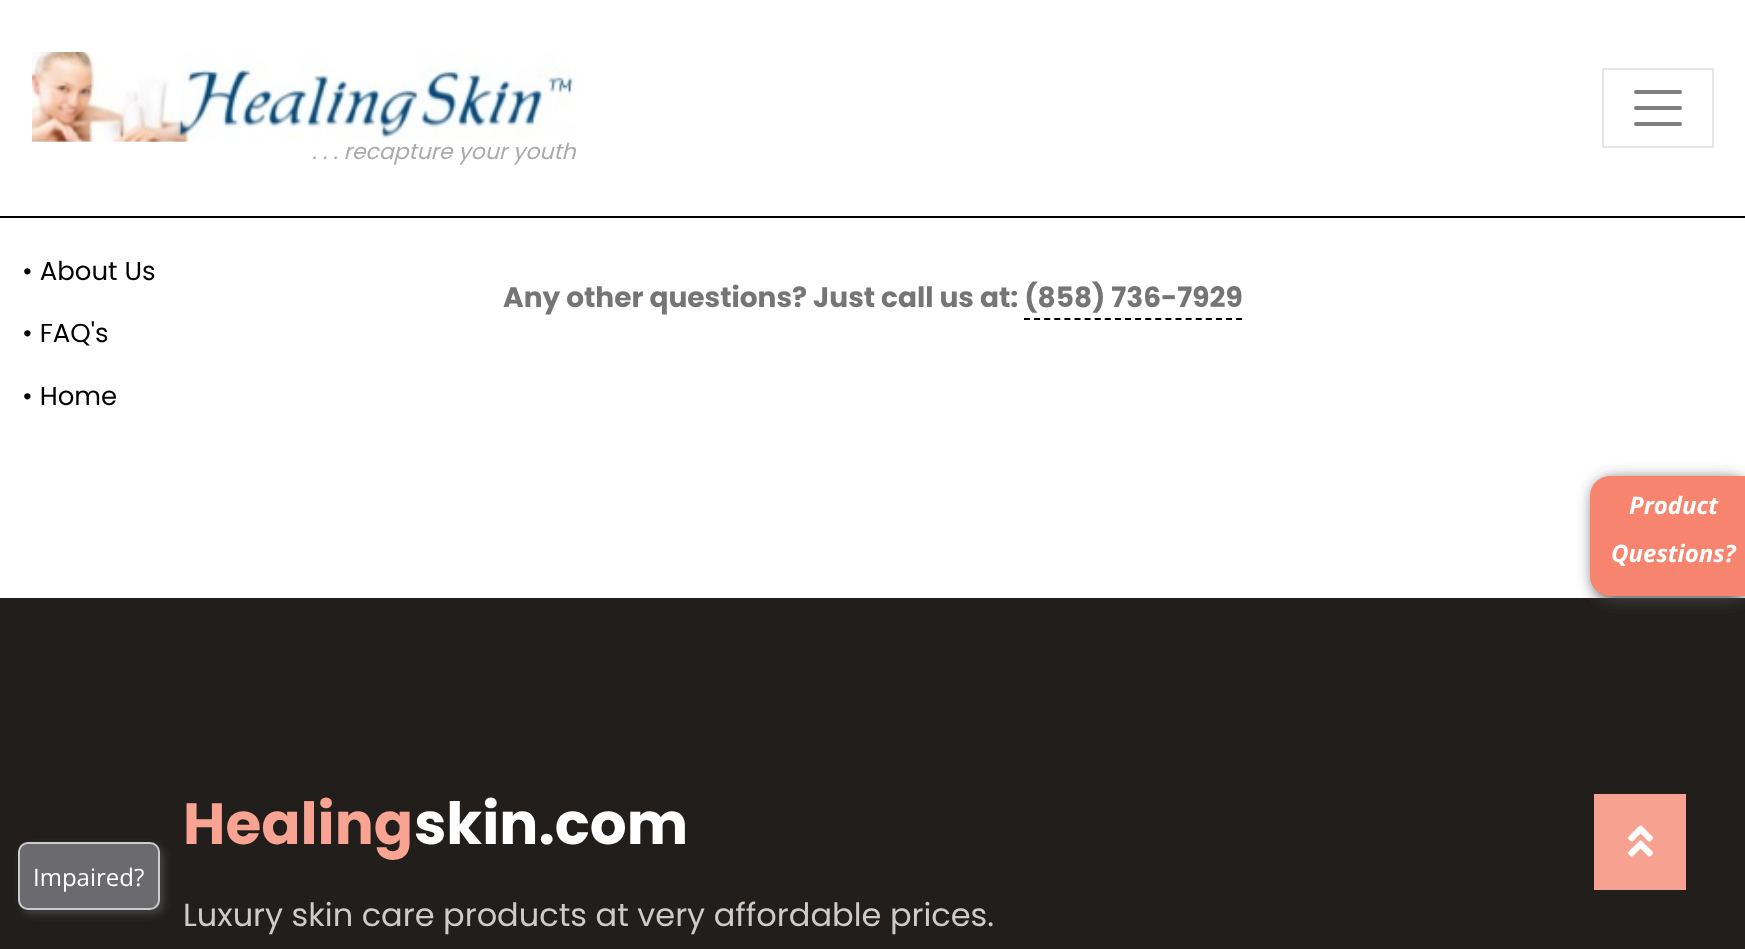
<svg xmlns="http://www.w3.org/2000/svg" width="1745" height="949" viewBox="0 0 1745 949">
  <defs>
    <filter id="blur1" x="-50%" y="-200%" width="200%" height="500%"><feGaussianBlur stdDeviation="4"/></filter>
    <filter id="blur2" x="-50%" y="-200%" width="200%" height="500%"><feGaussianBlur stdDeviation="8"/></filter>
  </defs>
  <rect width="100%" height="100%" fill="#ffffff"/>
  <rect x="0" y="216" width="1745" height="2" fill="#000000"/>
  <rect x="1603" y="69" width="110" height="78" fill="none" stroke="#e6e6e6" stroke-width="2"/>
  <path d="M1636 92H1680M1636 108H1680M1636 124H1680" fill="none" stroke="#808080" stroke-width="4" stroke-linecap="round"/>
  <image x="32" y="52" width="546" height="90" href="img1.png"/>
  <text x="312" y="159" font-family="Poppins" font-size="22" font-style="italic" fill="#aaaaaa">. . . recapture your youth</text>
  <rect x="0" y="598" width="1745" height="351" fill="#211e1c"/>
  <text x="22" y="280" font-family="Poppins" font-size="26" fill="#000000">• About Us</text>
  <text x="22" y="342" font-family="Poppins" font-size="26" fill="#000000">• FAQ's</text>
  <text x="22" y="405" font-family="Poppins" font-size="26" fill="#000000">• Home</text>
  <rect x="22" y="846" width="142" height="68" rx="10" fill="#444444" filter="url(#blur1)"/>
  <rect x="19" y="843" width="140" height="66" rx="9" fill="#6b6b6f" stroke="#cccccc" stroke-width="2"/>
  <text x="33" y="886" font-family="Open Sans" font-size="24" fill="#ffffff">Impaired?</text>
  <text x="183" y="844" font-family="Poppins" font-size="58" font-weight="bold" fill="#f9a392">Healing</text>
  <text x="414" y="844" font-family="Poppins" font-size="58" font-weight="bold" fill="#ffffff">skin.com</text>
  <text x="183" y="926" font-family="Poppins" font-size="32" fill="#cccccc">Luxury skin care products at very affordable prices.</text>
  <text x="503" y="307" font-family="Poppins" font-size="28" font-weight="bold" fill="#757575">Any other questions? Just call us at: (858) 736-7929</text>
  <path d="M1024 319H1242" fill="none" stroke="#000000" stroke-width="2" stroke-dasharray="6 4.1"/>
  <rect x="1594" y="480" width="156" height="120" rx="20" fill="#444444" filter="url(#blur2)"/>
  <path d="M1610 476H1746V596H1610C1599 596 1590 587 1590 576V496C1590 485 1599 476 1610 476Z" fill="#f7846e"/>
  <text x="1629" y="514" font-family="Open Sans" font-size="24" font-weight="bold" font-style="italic" fill="#ffffff">Product</text>
  <text x="1611" y="562" font-family="Open Sans" font-size="24" font-weight="bold" font-style="italic" fill="#ffffff">Questions?</text>
  <rect x="1594" y="794" width="92" height="96" fill="#f7a191"/>
  <image x="1628" y="825" width="25" height="32" href="img2.png"/>
</svg>
